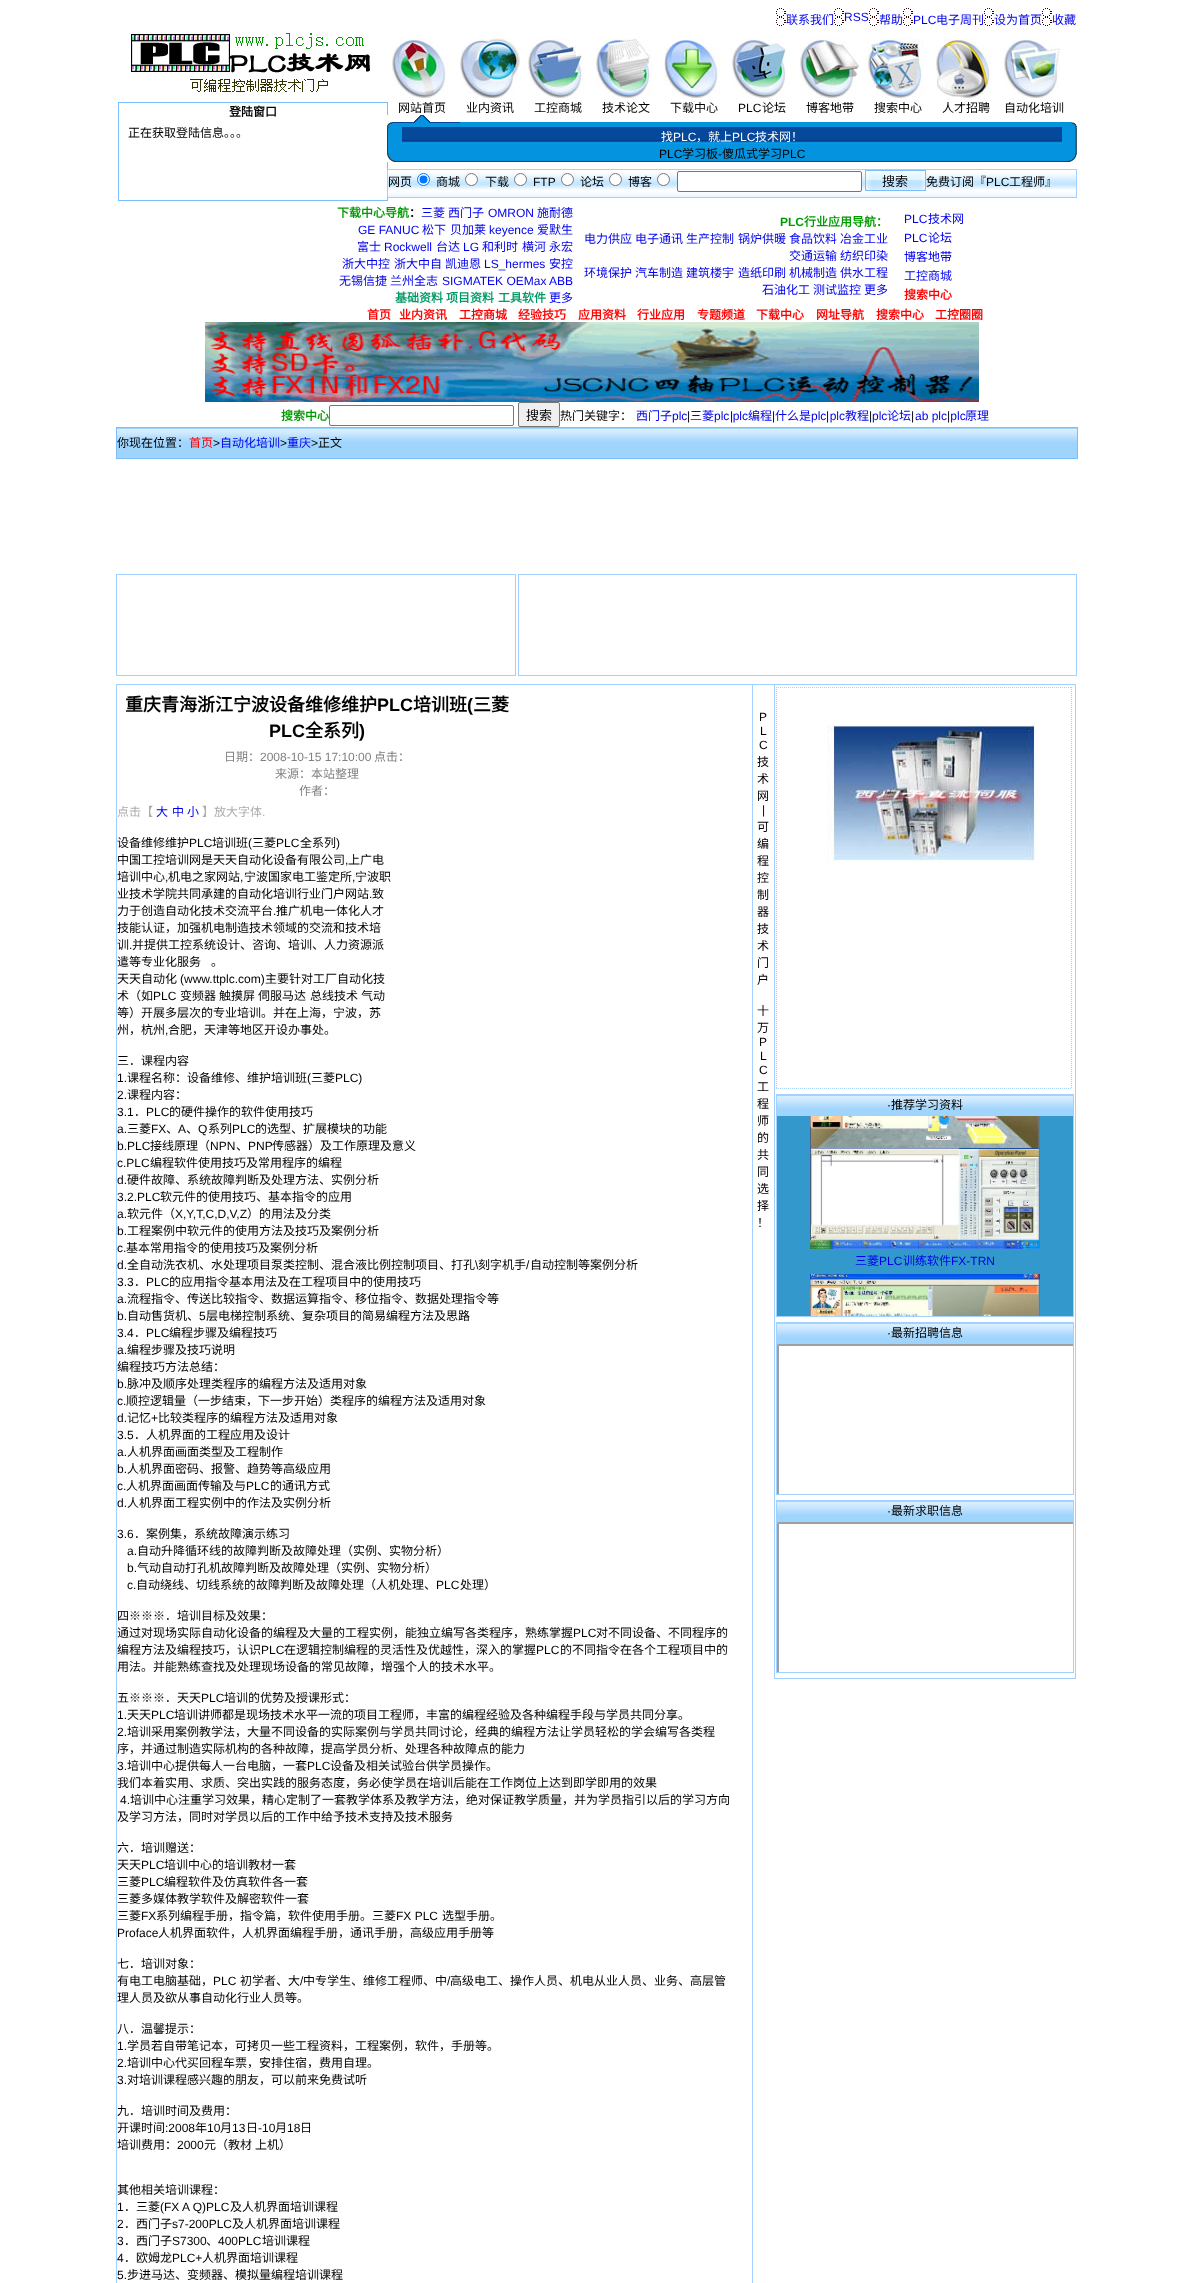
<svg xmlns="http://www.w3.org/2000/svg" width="1194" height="2283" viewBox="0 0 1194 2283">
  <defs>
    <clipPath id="clip1"><rect x="777" y="1344" width="296" height="150"/></clipPath>
    <clipPath id="clip2"><rect x="777" y="1522" width="296" height="150"/></clipPath>
  </defs>
  <rect width="100%" height="100%" fill="#ffffff"/>
  <image x="776" y="8" width="10" height="18" href="img1.png"/>
  <text x="786" y="24" font-family="Noto Sans CJK SC" font-size="12" fill="#0000ee">联系我们</text>
  <image x="834" y="8" width="10" height="18" href="img1.png"/>
  <text x="844" y="21" font-family="Liberation Sans" font-size="12" fill="#0000ee">RSS</text>
  <image x="869" y="8" width="10" height="18" href="img1.png"/>
  <text x="879" y="24" font-family="Noto Sans CJK SC" font-size="12" fill="#0000ee">帮助</text>
  <image x="903" y="8" width="10" height="18" href="img1.png"/>
  <text x="913" y="24" font-family="Liberation Sans" font-size="12" fill="#0000ee">PLC</text>
  <text x="936" y="24" font-family="Noto Sans CJK SC" font-size="12" fill="#0000ee">电子周刊</text>
  <image x="984" y="8" width="10" height="18" href="img1.png"/>
  <text x="994" y="24" font-family="Noto Sans CJK SC" font-size="12" fill="#0000ee">设为首页</text>
  <image x="1042" y="8" width="10" height="18" href="img1.png"/>
  <text x="1052" y="24" font-family="Noto Sans CJK SC" font-size="12" fill="#0000ee">收藏</text>
  <image x="131" y="33" width="239" height="59" href="img2.png"/>
  <rect x="118.5" y="102.5" width="269" height="98" fill="none" stroke="#7cbdfb"/>
  <text x="229" y="116" font-family="Noto Sans CJK SC" font-size="12" font-weight="bold" fill="#000000">登陆窗口</text>
  <text x="128" y="137" font-family="Noto Sans CJK SC" font-size="12" fill="#000000">正在获取登陆信息。。。</text>
  <image x="392" y="38" width="56" height="60" href="img3.png"/>
  <text x="398" y="112" font-family="Noto Sans CJK SC" font-size="12" fill="#000000">网站首页</text>
  <image x="460" y="38" width="60" height="60" href="img4.png"/>
  <text x="466" y="112" font-family="Noto Sans CJK SC" font-size="12" fill="#000000">业内资讯</text>
  <image x="528" y="38" width="56" height="60" href="img5.png"/>
  <text x="534" y="112" font-family="Noto Sans CJK SC" font-size="12" fill="#000000">工控商城</text>
  <image x="596" y="38" width="56" height="60" href="img6.png"/>
  <text x="602" y="112" font-family="Noto Sans CJK SC" font-size="12" fill="#000000">技术论文</text>
  <image x="664" y="38" width="56" height="60" href="img7.png"/>
  <text x="670" y="112" font-family="Noto Sans CJK SC" font-size="12" fill="#000000">下载中心</text>
  <image x="732" y="38" width="56" height="60" href="img8.png"/>
  <text x="738" y="112" font-family="Liberation Sans" font-size="12" fill="#000000">PLC</text>
  <text x="762" y="112" font-family="Noto Sans CJK SC" font-size="12" fill="#000000">论坛</text>
  <image x="800" y="38" width="60" height="60" href="img9.png"/>
  <text x="806" y="112" font-family="Noto Sans CJK SC" font-size="12" fill="#000000">博客地带</text>
  <image x="868" y="38" width="56" height="60" href="img10.png"/>
  <text x="874" y="112" font-family="Noto Sans CJK SC" font-size="12" fill="#000000">搜索中心</text>
  <image x="936" y="38" width="56" height="60" href="img11.png"/>
  <text x="942" y="112" font-family="Noto Sans CJK SC" font-size="12" fill="#000000">人才招聘</text>
  <image x="1004" y="38" width="56" height="60" href="img12.png"/>
  <text x="1004" y="112" font-family="Noto Sans CJK SC" font-size="12" fill="#000000">自动化培训</text>
  <image x="387" y="115" width="5" height="12" href="img13.png"/>
  <image x="392" y="115" width="68" height="12" href="img14.png"/>
  <rect x="460" y="122" width="612" height="5" fill="#0493de"/>
  <image x="1072" y="122" width="5" height="5" href="img15.png"/>
  <image x="387" y="127" width="15" height="35" href="img16.png"/>
  <image x="402" y="127" width="660" height="35" href="img17.png"/>
  <text x="661" y="141" font-family="Noto Sans CJK SC" font-size="12" fill="#ffffff">找</text>
  <text x="673" y="141" font-family="Liberation Sans" font-size="12" fill="#ffffff">PLC</text>
  <text x="696" y="141" font-family="Noto Sans CJK SC" font-size="12" fill="#ffffff">，就上</text>
  <text x="732" y="141" font-family="Liberation Sans" font-size="12" fill="#ffffff">PLC</text>
  <text x="755" y="141" font-family="Noto Sans CJK SC" font-size="12" fill="#ffffff">技术网！</text>
  <text x="659" y="158" font-family="Liberation Sans" font-size="12" fill="#000000">PLC</text>
  <text x="682" y="158" font-family="Noto Sans CJK SC" font-size="12" fill="#000000">学习板</text>
  <text x="718" y="158" font-family="Liberation Sans" font-size="12" fill="#000000">-</text>
  <text x="722" y="158" font-family="Noto Sans CJK SC" font-size="12" fill="#000000">傻瓜式学习</text>
  <text x="782" y="158" font-family="Liberation Sans" font-size="12" fill="#000000">PLC</text>
  <image x="1062" y="127" width="15" height="35" href="img18.png"/>
  <image x="388" y="170" width="688" height="27" href="img19.png"/>
  <rect x="387.5" y="169.5" width="689" height="28" fill="none" stroke="#a2d1ff"/>
  <text x="388" y="186" font-family="Noto Sans CJK SC" font-size="12" fill="#000000">网页</text>
  <circle cx="423.5" cy="179.5" r="6" fill="#ffffff" stroke="#0075ff"/>
  <circle cx="423.5" cy="179.5" r="4" fill="#0075ff"/>
  <text x="436" y="186" font-family="Noto Sans CJK SC" font-size="12" fill="#000000">商城</text>
  <circle cx="471.5" cy="179.5" r="6" fill="#ffffff" stroke="#767676"/>
  <text x="485" y="186" font-family="Noto Sans CJK SC" font-size="12" fill="#000000">下载</text>
  <circle cx="520.5" cy="179.5" r="6" fill="#ffffff" stroke="#767676"/>
  <text x="533" y="186" font-family="Liberation Sans" font-size="12" fill="#000000">FTP</text>
  <circle cx="567.5" cy="179.5" r="6" fill="#ffffff" stroke="#767676"/>
  <text x="580" y="186" font-family="Noto Sans CJK SC" font-size="12" fill="#000000">论坛</text>
  <circle cx="615.5" cy="179.5" r="6" fill="#ffffff" stroke="#767676"/>
  <text x="628" y="186" font-family="Noto Sans CJK SC" font-size="12" fill="#000000">博客</text>
  <circle cx="663.5" cy="179.5" r="6" fill="#ffffff" stroke="#767676"/>
  <rect x="677.5" y="171.5" width="184" height="20" rx="1.5" fill="#ffffff" stroke="#767676"/>
  <image x="865" y="170" width="61" height="21" href="img20.png"/>
  <text x="882" y="186" font-family="Noto Sans CJK SC" font-size="13" fill="#000000">搜索</text>
  <text x="926" y="186" font-family="Noto Sans CJK SC" font-size="12" fill="#000000">免费订阅『</text>
  <text x="986" y="186" font-family="Liberation Sans" font-size="12" fill="#000000">PLC</text>
  <text x="1009" y="186" font-family="Noto Sans CJK SC" font-size="12" fill="#000000">工程师』</text>
  <text x="337" y="217" font-family="Noto Sans CJK SC" font-size="12" font-weight="bold" fill="#009900">下载中心导航</text>
  <text x="409" y="217" font-family="Noto Sans CJK SC" font-size="12" font-weight="bold" fill="#000000">：</text>
  <text x="421" y="217" font-family="Noto Sans CJK SC" font-size="12" fill="#0000ee">三菱</text>
  <text x="448" y="217" font-family="Noto Sans CJK SC" font-size="12" fill="#0000ee">西门子</text>
  <text x="488" y="217" font-family="Liberation Sans" font-size="12" fill="#0000ee">OMRON</text>
  <text x="537" y="217" font-family="Noto Sans CJK SC" font-size="12" fill="#0000ee">施耐德</text>
  <text x="358" y="234" font-family="Liberation Sans" font-size="12" fill="#0000ee">GE FANUC</text>
  <text x="422" y="234" font-family="Noto Sans CJK SC" font-size="12" fill="#0000ee">松下</text>
  <text x="450" y="234" font-family="Noto Sans CJK SC" font-size="12" fill="#0000ee">贝加莱</text>
  <text x="489" y="234" font-family="Liberation Sans" font-size="12" fill="#0000ee">keyence</text>
  <text x="537" y="234" font-family="Noto Sans CJK SC" font-size="12" fill="#0000ee">爱默生</text>
  <text x="357" y="251" font-family="Noto Sans CJK SC" font-size="12" fill="#0000ee">富士</text>
  <text x="384" y="251" font-family="Liberation Sans" font-size="12" fill="#0000ee">Rockwell</text>
  <text x="436" y="251" font-family="Noto Sans CJK SC" font-size="12" fill="#0000ee">台达</text>
  <text x="463" y="251" font-family="Liberation Sans" font-size="12" fill="#0000ee">LG</text>
  <text x="482" y="251" font-family="Noto Sans CJK SC" font-size="12" fill="#0000ee">和利时</text>
  <text x="522" y="251" font-family="Noto Sans CJK SC" font-size="12" fill="#0000ee">横河</text>
  <text x="549" y="251" font-family="Noto Sans CJK SC" font-size="12" fill="#0000ee">永宏</text>
  <text x="342" y="268" font-family="Noto Sans CJK SC" font-size="12" fill="#0000ee">浙大中控</text>
  <text x="394" y="268" font-family="Noto Sans CJK SC" font-size="12" fill="#0000ee">浙大中自</text>
  <text x="445" y="268" font-family="Noto Sans CJK SC" font-size="12" fill="#0000ee">凯迪恩</text>
  <text x="484" y="268" font-family="Liberation Sans" font-size="12" fill="#0000ee">LS_hermes</text>
  <text x="549" y="268" font-family="Noto Sans CJK SC" font-size="12" fill="#0000ee">安控</text>
  <text x="339" y="285" font-family="Noto Sans CJK SC" font-size="12" fill="#0000ee">无锡信捷</text>
  <text x="390" y="285" font-family="Noto Sans CJK SC" font-size="12" fill="#0000ee">兰州全志</text>
  <text x="442" y="285" font-family="Liberation Sans" font-size="12" fill="#0000ee">SIGMATEK OEMax</text>
  <text x="549" y="285" font-family="Liberation Sans" font-size="12" fill="#0000ee">ABB</text>
  <text x="395" y="302" font-family="Noto Sans CJK SC" font-size="12" font-weight="bold" fill="#009966">基础资料</text>
  <text x="446" y="302" font-family="Noto Sans CJK SC" font-size="12" font-weight="bold" fill="#009966">项目资料</text>
  <text x="498" y="302" font-family="Noto Sans CJK SC" font-size="12" font-weight="bold" fill="#009966">工具软件</text>
  <text x="549" y="302" font-family="Noto Sans CJK SC" font-size="12" fill="#0000ee">更多</text>
  <text x="780" y="226" font-family="Liberation Sans" font-size="12" font-weight="bold" fill="#009900">PLC</text>
  <text x="804" y="226" font-family="Noto Sans CJK SC" font-size="12" font-weight="bold" fill="#009900">行业应用导航：</text>
  <text x="584" y="243" font-family="Noto Sans CJK SC" font-size="12" fill="#0000ee">电力供应</text>
  <text x="635" y="243" font-family="Noto Sans CJK SC" font-size="12" fill="#0000ee">电子通讯</text>
  <text x="686" y="243" font-family="Noto Sans CJK SC" font-size="12" fill="#0000ee">生产控制</text>
  <text x="738" y="243" font-family="Noto Sans CJK SC" font-size="12" fill="#0000ee">锅炉供暖</text>
  <text x="789" y="243" font-family="Noto Sans CJK SC" font-size="12" fill="#0000ee">食品饮料</text>
  <text x="840" y="243" font-family="Noto Sans CJK SC" font-size="12" fill="#0000ee">冶金工业</text>
  <text x="789" y="260" font-family="Noto Sans CJK SC" font-size="12" fill="#0000ee">交通运输</text>
  <text x="840" y="260" font-family="Noto Sans CJK SC" font-size="12" fill="#0000ee">纺织印染</text>
  <text x="584" y="277" font-family="Noto Sans CJK SC" font-size="12" fill="#0000ee">环境保护</text>
  <text x="635" y="277" font-family="Noto Sans CJK SC" font-size="12" fill="#0000ee">汽车制造</text>
  <text x="686" y="277" font-family="Noto Sans CJK SC" font-size="12" fill="#0000ee">建筑楼宇</text>
  <text x="738" y="277" font-family="Noto Sans CJK SC" font-size="12" fill="#0000ee">造纸印刷</text>
  <text x="789" y="277" font-family="Noto Sans CJK SC" font-size="12" fill="#0000ee">机械制造</text>
  <text x="840" y="277" font-family="Noto Sans CJK SC" font-size="12" fill="#0000ee">供水工程</text>
  <text x="762" y="294" font-family="Noto Sans CJK SC" font-size="12" fill="#0000ee">石油化工</text>
  <text x="813" y="294" font-family="Noto Sans CJK SC" font-size="12" fill="#0000ee">测试监控</text>
  <text x="864" y="294" font-family="Noto Sans CJK SC" font-size="12" fill="#0000ee">更多</text>
  <text x="904" y="223" font-family="Liberation Sans" font-size="12" fill="#0000ee">PLC</text>
  <text x="928" y="223" font-family="Noto Sans CJK SC" font-size="12" fill="#0000ee">技术网</text>
  <text x="904" y="242" font-family="Liberation Sans" font-size="12" fill="#0000ee">PLC</text>
  <text x="928" y="242" font-family="Noto Sans CJK SC" font-size="12" fill="#0000ee">论坛</text>
  <text x="904" y="261" font-family="Noto Sans CJK SC" font-size="12" fill="#0000ee">博客地带</text>
  <text x="904" y="280" font-family="Noto Sans CJK SC" font-size="12" fill="#0000ee">工控商城</text>
  <text x="904" y="299" font-family="Noto Sans CJK SC" font-size="12" font-weight="bold" fill="#ff0000">搜索中心</text>
  <text x="367" y="319" font-family="Noto Sans CJK SC" font-size="12" font-weight="bold" fill="#ff0000">首页</text>
  <text x="399" y="319" font-family="Noto Sans CJK SC" font-size="12" font-weight="bold" fill="#ff0000">业内资讯</text>
  <text x="459" y="319" font-family="Noto Sans CJK SC" font-size="12" font-weight="bold" fill="#ff0000">工控商城</text>
  <text x="518" y="319" font-family="Noto Sans CJK SC" font-size="12" font-weight="bold" fill="#ff0000">经验技巧</text>
  <text x="578" y="319" font-family="Noto Sans CJK SC" font-size="12" font-weight="bold" fill="#ff0000">应用资料</text>
  <text x="637" y="319" font-family="Noto Sans CJK SC" font-size="12" font-weight="bold" fill="#ff0000">行业应用</text>
  <text x="697" y="319" font-family="Noto Sans CJK SC" font-size="12" font-weight="bold" fill="#ff0000">专题频道</text>
  <text x="756" y="319" font-family="Noto Sans CJK SC" font-size="12" font-weight="bold" fill="#ff0000">下载中心</text>
  <text x="816" y="319" font-family="Noto Sans CJK SC" font-size="12" font-weight="bold" fill="#ff0000">网址导航</text>
  <text x="876" y="319" font-family="Noto Sans CJK SC" font-size="12" font-weight="bold" fill="#ff0000">搜索中心</text>
  <text x="935" y="319" font-family="Noto Sans CJK SC" font-size="12" font-weight="bold" fill="#ff0000">工控圈圈</text>
  <image x="205" y="322" width="774" height="80" href="img21.png"/>
  <text x="281" y="420" font-family="Noto Sans CJK SC" font-size="12" font-weight="bold" fill="#009900">搜索中心</text>
  <rect x="329.5" y="405.5" width="184" height="20" rx="1.5" fill="none" stroke="#767676"/>
  <rect x="518.5" y="402.5" width="41" height="24" rx="1.5" fill="#efefef" stroke="#767676"/>
  <text x="526" y="420" font-family="Noto Sans CJK SC" font-size="13" fill="#000000">搜索</text>
  <text x="560" y="420" font-family="Noto Sans CJK SC" font-size="12" fill="#000000">热门关键字：</text>
  <text x="636" y="420" font-family="Noto Sans CJK SC" font-size="12" fill="#0000ee">西门子</text>
  <text x="672" y="420" font-family="Liberation Sans" font-size="12" fill="#0000ee">plc</text>
  <text x="687" y="420" font-family="Liberation Sans" font-size="12" fill="#000000">|</text>
  <text x="690" y="420" font-family="Noto Sans CJK SC" font-size="12" fill="#0000ee">三菱</text>
  <text x="714" y="420" font-family="Liberation Sans" font-size="12" fill="#0000ee">plc plc</text>
  <text x="748" y="420" font-family="Noto Sans CJK SC" font-size="12" fill="#0000ee">编程</text>
  <text x="775" y="420" font-family="Noto Sans CJK SC" font-size="12" fill="#0000ee">什么是</text>
  <text x="845" y="420" font-family="Noto Sans CJK SC" font-size="12" fill="#0000ee">教程</text>
  <text x="872" y="420" font-family="Liberation Sans" font-size="12" fill="#0000ee">plc</text>
  <text x="887" y="420" font-family="Noto Sans CJK SC" font-size="12" fill="#0000ee">论坛</text>
  <text x="965" y="420" font-family="Noto Sans CJK SC" font-size="12" fill="#0000ee">原理</text>
  <text x="730" y="420" font-family="Liberation Sans" font-size="12" fill="#000000">|</text>
  <text x="772" y="420" font-family="Liberation Sans" font-size="12" fill="#000000">|</text>
  <text x="811" y="420" font-family="Liberation Sans" font-size="12" fill="#0000ee">plc plc</text>
  <text x="826" y="420" font-family="Liberation Sans" font-size="12" fill="#000000">|</text>
  <text x="869" y="420" font-family="Liberation Sans" font-size="12" fill="#000000">|</text>
  <text x="911" y="420" font-family="Liberation Sans" font-size="12" fill="#000000">|</text>
  <text x="915" y="420" font-family="Liberation Sans" font-size="12" fill="#0000ee">ab plc plc</text>
  <text x="947" y="420" font-family="Liberation Sans" font-size="12" fill="#000000">|</text>
  <image x="117" y="428" width="960" height="30" href="img22.png"/>
  <rect x="116.5" y="427.5" width="961" height="31" fill="none" stroke="#7cbdfb"/>
  <text x="117" y="447" font-family="Noto Sans CJK SC" font-size="12" fill="#000000">你现在位置：</text>
  <text x="189" y="447" font-family="Noto Sans CJK SC" font-size="12" fill="#ff0000">首页</text>
  <text x="213" y="447" font-family="Liberation Sans" font-size="12" fill="#000000">&gt;</text>
  <text x="220" y="447" font-family="Noto Sans CJK SC" font-size="12" fill="#0000ee">自动化培训</text>
  <text x="280" y="447" font-family="Liberation Sans" font-size="12" fill="#000000">&gt;</text>
  <text x="287" y="447" font-family="Noto Sans CJK SC" font-size="12" fill="#0000ee">重庆</text>
  <text x="311" y="447" font-family="Liberation Sans" font-size="12" fill="#000000">&gt;</text>
  <text x="318" y="447" font-family="Noto Sans CJK SC" font-size="12" fill="#000000">正文</text>
  <rect x="116.5" y="574.5" width="399" height="101" fill="none" stroke="#a2d1ff"/>
  <rect x="518.5" y="574.5" width="558" height="101" fill="none" stroke="#a2d1ff"/>
  <rect x="116.5" y="684.5" width="636" height="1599" fill="none" stroke="#a2d1ff"/>
  <text x="125" y="711" font-family="Noto Sans CJK SC" font-size="18" font-weight="bold" fill="#000000">重庆青海浙江宁波设备维修维护</text>
  <text x="377" y="711" font-family="Liberation Sans" font-size="18" font-weight="bold" fill="#000000">PLC</text>
  <text x="413" y="711" font-family="Noto Sans CJK SC" font-size="18" font-weight="bold" fill="#000000">培训班</text>
  <text x="467" y="711" font-family="Liberation Sans" font-size="18" font-weight="bold" fill="#000000">(</text>
  <text x="473" y="711" font-family="Noto Sans CJK SC" font-size="18" font-weight="bold" fill="#000000">三菱</text>
  <text x="269" y="737" font-family="Liberation Sans" font-size="18" font-weight="bold" fill="#000000">PLC</text>
  <text x="305" y="737" font-family="Noto Sans CJK SC" font-size="18" font-weight="bold" fill="#000000">全系列</text>
  <text x="359" y="737" font-family="Liberation Sans" font-size="18" font-weight="bold" fill="#000000">)</text>
  <text x="224" y="761" font-family="Noto Sans CJK SC" font-size="12" fill="#808080">日期：</text>
  <text x="260" y="761" font-family="Liberation Sans" font-size="12" fill="#808080">2008-10-15 17:10:00</text>
  <text x="374" y="761" font-family="Noto Sans CJK SC" font-size="12" fill="#808080">点击：</text>
  <text x="275" y="778" font-family="Noto Sans CJK SC" font-size="12" fill="#808080">来源：本站整理</text>
  <text x="299" y="795" font-family="Noto Sans CJK SC" font-size="12" fill="#808080">作者：</text>
  <text x="117" y="816" font-family="Noto Sans CJK SC" font-size="12" fill="#acacac">点击【</text>
  <text x="156" y="816" font-family="Noto Sans CJK SC" font-size="12" fill="#0000ee">大</text>
  <text x="172" y="816" font-family="Noto Sans CJK SC" font-size="12" fill="#0000ee">中</text>
  <text x="187" y="816" font-family="Noto Sans CJK SC" font-size="12" fill="#0000ee">小</text>
  <text x="202" y="816" font-family="Noto Sans CJK SC" font-size="12" fill="#acacac">】放大字体</text>
  <text x="262" y="816" font-family="Liberation Sans" font-size="12" fill="#acacac">.</text>
  <text x="117" y="847" font-family="Noto Sans CJK SC" font-size="12" fill="#000000">设备维修维护</text>
  <text x="189" y="847" font-family="Liberation Sans" font-size="12" fill="#000000">PLC</text>
  <text x="212" y="847" font-family="Noto Sans CJK SC" font-size="12" fill="#000000">培训班</text>
  <text x="248" y="847" font-family="Liberation Sans" font-size="12" fill="#000000">(</text>
  <text x="252" y="847" font-family="Noto Sans CJK SC" font-size="12" fill="#000000">三菱</text>
  <text x="276" y="847" font-family="Liberation Sans" font-size="12" fill="#000000">PLC</text>
  <text x="300" y="847" font-family="Noto Sans CJK SC" font-size="12" fill="#000000">全系列</text>
  <text x="336" y="847" font-family="Liberation Sans" font-size="12" fill="#000000">)</text>
  <text x="117" y="864" font-family="Noto Sans CJK SC" font-size="12" fill="#000000">中国工控培训网是天天自动化设备有限公司</text>
  <text x="345" y="864" font-family="Liberation Sans" font-size="12" fill="#000000">,</text>
  <text x="348" y="864" font-family="Noto Sans CJK SC" font-size="12" fill="#000000">上广电</text>
  <text x="117" y="881" font-family="Noto Sans CJK SC" font-size="12" fill="#000000">培训中心</text>
  <text x="165" y="881" font-family="Liberation Sans" font-size="12" fill="#000000">,</text>
  <text x="168" y="881" font-family="Noto Sans CJK SC" font-size="12" fill="#000000">机电之家网站</text>
  <text x="240" y="881" font-family="Liberation Sans" font-size="12" fill="#000000">,</text>
  <text x="244" y="881" font-family="Noto Sans CJK SC" font-size="12" fill="#000000">宁波国家电工鉴定所</text>
  <text x="352" y="881" font-family="Liberation Sans" font-size="12" fill="#000000">,</text>
  <text x="355" y="881" font-family="Noto Sans CJK SC" font-size="12" fill="#000000">宁波职</text>
  <text x="117" y="898" font-family="Noto Sans CJK SC" font-size="12" fill="#000000">业技术学院共同承建的自动化培训行业门户网站</text>
  <text x="369" y="898" font-family="Liberation Sans" font-size="12" fill="#000000">.</text>
  <text x="372" y="898" font-family="Noto Sans CJK SC" font-size="12" fill="#000000">致</text>
  <text x="117" y="915" font-family="Noto Sans CJK SC" font-size="12" fill="#000000">力于创造自动化技术交流平台</text>
  <text x="273" y="915" font-family="Liberation Sans" font-size="12" fill="#000000">.</text>
  <text x="276" y="915" font-family="Noto Sans CJK SC" font-size="12" fill="#000000">推广机电一体化人才</text>
  <text x="117" y="932" font-family="Noto Sans CJK SC" font-size="12" fill="#000000">技能认证，加强机电制造技术领域的交流和技术培</text>
  <text x="117" y="949" font-family="Noto Sans CJK SC" font-size="12" fill="#000000">训</text>
  <text x="129" y="949" font-family="Liberation Sans" font-size="12" fill="#000000">.</text>
  <text x="132" y="949" font-family="Noto Sans CJK SC" font-size="12" fill="#000000">并提供工控系统设计、咨询、培训、人力资源派</text>
  <text x="117" y="966" font-family="Noto Sans CJK SC" font-size="12" fill="#000000">遣等专业化服务</text>
  <text x="211" y="966" font-family="Noto Sans CJK SC" font-size="12" fill="#000000">。</text>
  <text x="117" y="983" font-family="Noto Sans CJK SC" font-size="12" fill="#000000">天天自动化</text>
  <text x="180" y="983" font-family="Liberation Sans" font-size="12" fill="#000000">(www.ttplc.com)</text>
  <text x="265" y="983" font-family="Noto Sans CJK SC" font-size="12" fill="#000000">主要针对工厂自动化技</text>
  <text x="117" y="1000" font-family="Noto Sans CJK SC" font-size="12" fill="#000000">术（如</text>
  <text x="153" y="1000" font-family="Liberation Sans" font-size="12" fill="#000000">PLC</text>
  <text x="180" y="1000" font-family="Noto Sans CJK SC" font-size="12" fill="#000000">变频器</text>
  <text x="219" y="1000" font-family="Noto Sans CJK SC" font-size="12" fill="#000000">触摸屏</text>
  <text x="258" y="1000" font-family="Noto Sans CJK SC" font-size="12" fill="#000000">伺服马达</text>
  <text x="310" y="1000" font-family="Noto Sans CJK SC" font-size="12" fill="#000000">总线技术</text>
  <text x="361" y="1000" font-family="Noto Sans CJK SC" font-size="12" fill="#000000">气动</text>
  <text x="117" y="1017" font-family="Noto Sans CJK SC" font-size="12" fill="#000000">等）开展多层次的专业培训。并在上海，宁波，苏</text>
  <text x="117" y="1034" font-family="Noto Sans CJK SC" font-size="12" fill="#000000">州，杭州</text>
  <text x="165" y="1034" font-family="Liberation Sans" font-size="12" fill="#000000">,</text>
  <text x="168" y="1034" font-family="Noto Sans CJK SC" font-size="12" fill="#000000">合肥，天津等地区开设办事处。</text>
  <text x="117" y="1065" font-family="Noto Sans CJK SC" font-size="12" fill="#000000">三．课程内容</text>
  <text x="117" y="1082" font-family="Liberation Sans" font-size="12" fill="#000000">1.</text>
  <text x="127" y="1082" font-family="Noto Sans CJK SC" font-size="12" fill="#000000">课程名称：设备维修、维护培训班</text>
  <text x="307" y="1082" font-family="Liberation Sans" font-size="12" fill="#000000">(</text>
  <text x="311" y="1082" font-family="Noto Sans CJK SC" font-size="12" fill="#000000">三菱</text>
  <text x="335" y="1082" font-family="Liberation Sans" font-size="12" fill="#000000">PLC)</text>
  <text x="117" y="1099" font-family="Liberation Sans" font-size="12" fill="#000000">2.</text>
  <text x="127" y="1099" font-family="Noto Sans CJK SC" font-size="12" fill="#000000">课程内容：</text>
  <text x="117" y="1116" font-family="Liberation Sans" font-size="12" fill="#000000">3.1</text>
  <text x="134" y="1116" font-family="Noto Sans CJK SC" font-size="12" fill="#000000">．</text>
  <text x="146" y="1116" font-family="Liberation Sans" font-size="12" fill="#000000">PLC</text>
  <text x="169" y="1116" font-family="Noto Sans CJK SC" font-size="12" fill="#000000">的硬件操作的软件使用技巧</text>
  <text x="117" y="1133" font-family="Liberation Sans" font-size="12" fill="#000000">a.</text>
  <text x="127" y="1133" font-family="Noto Sans CJK SC" font-size="12" fill="#000000">三菱</text>
  <text x="151" y="1133" font-family="Liberation Sans" font-size="12" fill="#000000">FX</text>
  <text x="166" y="1133" font-family="Noto Sans CJK SC" font-size="12" fill="#000000">、</text>
  <text x="178" y="1133" font-family="Liberation Sans" font-size="12" fill="#000000">A</text>
  <text x="186" y="1133" font-family="Noto Sans CJK SC" font-size="12" fill="#000000">、</text>
  <text x="198" y="1133" font-family="Liberation Sans" font-size="12" fill="#000000">Q</text>
  <text x="208" y="1133" font-family="Noto Sans CJK SC" font-size="12" fill="#000000">系列</text>
  <text x="232" y="1133" font-family="Liberation Sans" font-size="12" fill="#000000">PLC</text>
  <text x="255" y="1133" font-family="Noto Sans CJK SC" font-size="12" fill="#000000">的选型、扩展模块的功能</text>
  <text x="117" y="1150" font-family="Liberation Sans" font-size="12" fill="#000000">b.PLC</text>
  <text x="150" y="1150" font-family="Noto Sans CJK SC" font-size="12" fill="#000000">接线原理（</text>
  <text x="210" y="1150" font-family="Liberation Sans" font-size="12" fill="#000000">NPN</text>
  <text x="236" y="1150" font-family="Noto Sans CJK SC" font-size="12" fill="#000000">、</text>
  <text x="248" y="1150" font-family="Liberation Sans" font-size="12" fill="#000000">PNP</text>
  <text x="272" y="1150" font-family="Noto Sans CJK SC" font-size="12" fill="#000000">传感器）及工作原理及意义</text>
  <text x="117" y="1167" font-family="Liberation Sans" font-size="12" fill="#000000">c.PLC</text>
  <text x="150" y="1167" font-family="Noto Sans CJK SC" font-size="12" fill="#000000">编程软件使用技巧及常用程序的编程</text>
  <text x="117" y="1184" font-family="Liberation Sans" font-size="12" fill="#000000">d.</text>
  <text x="127" y="1184" font-family="Noto Sans CJK SC" font-size="12" fill="#000000">硬件故障、系统故障判断及处理方法、实例分析</text>
  <text x="117" y="1201" font-family="Liberation Sans" font-size="12" fill="#000000">3.2.PLC</text>
  <text x="160" y="1201" font-family="Noto Sans CJK SC" font-size="12" fill="#000000">软元件的使用技巧、基本指令的应用</text>
  <text x="117" y="1218" font-family="Liberation Sans" font-size="12" fill="#000000">a.</text>
  <text x="127" y="1218" font-family="Noto Sans CJK SC" font-size="12" fill="#000000">软元件（</text>
  <text x="175" y="1218" font-family="Liberation Sans" font-size="12" fill="#000000">X,Y,T,C,D,V,Z</text>
  <text x="247" y="1218" font-family="Noto Sans CJK SC" font-size="12" fill="#000000">）的用法及分类</text>
  <text x="117" y="1235" font-family="Liberation Sans" font-size="12" fill="#000000">b.</text>
  <text x="127" y="1235" font-family="Noto Sans CJK SC" font-size="12" fill="#000000">工程案例中软元件的使用方法及技巧及案例分析</text>
  <text x="117" y="1252" font-family="Liberation Sans" font-size="12" fill="#000000">c.</text>
  <text x="126" y="1252" font-family="Noto Sans CJK SC" font-size="12" fill="#000000">基本常用指令的使用技巧及案例分析</text>
  <text x="117" y="1269" font-family="Liberation Sans" font-size="12" fill="#000000">d.</text>
  <text x="127" y="1269" font-family="Noto Sans CJK SC" font-size="12" fill="#000000">全自动洗衣机、水处理项目泵类控制、混合液比例控制项目、打孔</text>
  <text x="475" y="1269" font-family="Liberation Sans" font-size="12" fill="#000000">\</text>
  <text x="478" y="1269" font-family="Noto Sans CJK SC" font-size="12" fill="#000000">刻字机手</text>
  <text x="526" y="1269" font-family="Liberation Sans" font-size="12" fill="#000000">/</text>
  <text x="530" y="1269" font-family="Noto Sans CJK SC" font-size="12" fill="#000000">自动控制等案例分析</text>
  <text x="117" y="1286" font-family="Liberation Sans" font-size="12" fill="#000000">3.3</text>
  <text x="134" y="1286" font-family="Noto Sans CJK SC" font-size="12" fill="#000000">．</text>
  <text x="146" y="1286" font-family="Liberation Sans" font-size="12" fill="#000000">PLC</text>
  <text x="169" y="1286" font-family="Noto Sans CJK SC" font-size="12" fill="#000000">的应用指令基本用法及在工程项目中的使用技巧</text>
  <text x="117" y="1303" font-family="Liberation Sans" font-size="12" fill="#000000">a.</text>
  <text x="127" y="1303" font-family="Noto Sans CJK SC" font-size="12" fill="#000000">流程指令、传送比较指令、数据运算指令、移位指令、数据处理指令等</text>
  <text x="117" y="1320" font-family="Liberation Sans" font-size="12" fill="#000000">b.</text>
  <text x="127" y="1320" font-family="Noto Sans CJK SC" font-size="12" fill="#000000">自动售货机、</text>
  <text x="199" y="1320" font-family="Liberation Sans" font-size="12" fill="#000000">5</text>
  <text x="206" y="1320" font-family="Noto Sans CJK SC" font-size="12" fill="#000000">层电梯控制系统、复杂项目的简易编程方法及思路</text>
  <text x="117" y="1337" font-family="Liberation Sans" font-size="12" fill="#000000">3.4</text>
  <text x="134" y="1337" font-family="Noto Sans CJK SC" font-size="12" fill="#000000">．</text>
  <text x="146" y="1337" font-family="Liberation Sans" font-size="12" fill="#000000">PLC</text>
  <text x="169" y="1337" font-family="Noto Sans CJK SC" font-size="12" fill="#000000">编程步骤及编程技巧</text>
  <text x="117" y="1354" font-family="Liberation Sans" font-size="12" fill="#000000">a.</text>
  <text x="127" y="1354" font-family="Noto Sans CJK SC" font-size="12" fill="#000000">编程步骤及技巧说明</text>
  <text x="117" y="1371" font-family="Noto Sans CJK SC" font-size="12" fill="#000000">编程技巧方法总结：</text>
  <text x="117" y="1388" font-family="Liberation Sans" font-size="12" fill="#000000">b.</text>
  <text x="127" y="1388" font-family="Noto Sans CJK SC" font-size="12" fill="#000000">脉冲及顺序处理类程序的编程方法及适用对象</text>
  <text x="117" y="1405" font-family="Liberation Sans" font-size="12" fill="#000000">c.</text>
  <text x="126" y="1405" font-family="Noto Sans CJK SC" font-size="12" fill="#000000">顺控逻辑量（一步结束，下一步开始）类程序的编程方法及适用对象</text>
  <text x="117" y="1422" font-family="Liberation Sans" font-size="12" fill="#000000">d.</text>
  <text x="127" y="1422" font-family="Noto Sans CJK SC" font-size="12" fill="#000000">记忆</text>
  <text x="151" y="1422" font-family="Liberation Sans" font-size="12" fill="#000000">+</text>
  <text x="158" y="1422" font-family="Noto Sans CJK SC" font-size="12" fill="#000000">比较类程序的编程方法及适用对象</text>
  <text x="117" y="1439" font-family="Liberation Sans" font-size="12" fill="#000000">3.5</text>
  <text x="134" y="1439" font-family="Noto Sans CJK SC" font-size="12" fill="#000000">．人机界面的工程应用及设计</text>
  <text x="117" y="1456" font-family="Liberation Sans" font-size="12" fill="#000000">a.</text>
  <text x="127" y="1456" font-family="Noto Sans CJK SC" font-size="12" fill="#000000">人机界面画面类型及工程制作</text>
  <text x="117" y="1473" font-family="Liberation Sans" font-size="12" fill="#000000">b.</text>
  <text x="127" y="1473" font-family="Noto Sans CJK SC" font-size="12" fill="#000000">人机界面密码、报警、趋势等高级应用</text>
  <text x="117" y="1490" font-family="Liberation Sans" font-size="12" fill="#000000">c.</text>
  <text x="126" y="1490" font-family="Noto Sans CJK SC" font-size="12" fill="#000000">人机界面画面传输及与</text>
  <text x="246" y="1490" font-family="Liberation Sans" font-size="12" fill="#000000">PLC</text>
  <text x="270" y="1490" font-family="Noto Sans CJK SC" font-size="12" fill="#000000">的通讯方式</text>
  <text x="117" y="1507" font-family="Liberation Sans" font-size="12" fill="#000000">d.</text>
  <text x="127" y="1507" font-family="Noto Sans CJK SC" font-size="12" fill="#000000">人机界面工程实例中的作法及实例分析</text>
  <text x="117" y="1538" font-family="Liberation Sans" font-size="12" fill="#000000">3.6</text>
  <text x="134" y="1538" font-family="Noto Sans CJK SC" font-size="12" fill="#000000">．案例集，系统故障演示练习</text>
  <text x="127" y="1555" font-family="Liberation Sans" font-size="12" fill="#000000">a.</text>
  <text x="137" y="1555" font-family="Noto Sans CJK SC" font-size="12" fill="#000000">自动升降循环线的故障判断及故障处理（实例、实物分析）</text>
  <text x="127" y="1572" font-family="Liberation Sans" font-size="12" fill="#000000">b.</text>
  <text x="137" y="1572" font-family="Noto Sans CJK SC" font-size="12" fill="#000000">气动自动打孔机故障判断及故障处理（实例、实物分析）</text>
  <text x="127" y="1589" font-family="Liberation Sans" font-size="12" fill="#000000">c.</text>
  <text x="136" y="1589" font-family="Noto Sans CJK SC" font-size="12" fill="#000000">自动绕线、切线系统的故障判断及故障处理（人机处理、</text>
  <text x="436" y="1589" font-family="Liberation Sans" font-size="12" fill="#000000">PLC</text>
  <text x="460" y="1589" font-family="Noto Sans CJK SC" font-size="12" fill="#000000">处理）</text>
  <text x="117" y="1620" font-family="Noto Sans CJK SC" font-size="12" fill="#000000">四※※※．培训目标及效果：</text>
  <text x="117" y="1637" font-family="Noto Sans CJK SC" font-size="12" fill="#000000">通过对现场实际自动化设备的编程及大量的工程实例，能独立编写各类程序，熟练掌握</text>
  <text x="573" y="1637" font-family="Liberation Sans" font-size="12" fill="#000000">PLC</text>
  <text x="596" y="1637" font-family="Noto Sans CJK SC" font-size="12" fill="#000000">对不同设备、不同程序的</text>
  <text x="117" y="1654" font-family="Noto Sans CJK SC" font-size="12" fill="#000000">编程方法及编程技巧，认识</text>
  <text x="261" y="1654" font-family="Liberation Sans" font-size="12" fill="#000000">PLC</text>
  <text x="284" y="1654" font-family="Noto Sans CJK SC" font-size="12" fill="#000000">在逻辑控制编程的灵活性及优越性，深入的掌握</text>
  <text x="536" y="1654" font-family="Liberation Sans" font-size="12" fill="#000000">PLC</text>
  <text x="560" y="1654" font-family="Noto Sans CJK SC" font-size="12" fill="#000000">的不同指令在各个工程项目中的</text>
  <text x="117" y="1671" font-family="Noto Sans CJK SC" font-size="12" fill="#000000">用法。并能熟练查找及处理现场设备的常见故障，增强个人的技术水平。</text>
  <text x="117" y="1702" font-family="Noto Sans CJK SC" font-size="12" fill="#000000">五※※※．天天</text>
  <text x="201" y="1702" font-family="Liberation Sans" font-size="12" fill="#000000">PLC</text>
  <text x="224" y="1702" font-family="Noto Sans CJK SC" font-size="12" fill="#000000">培训的优势及授课形式：</text>
  <text x="117" y="1719" font-family="Liberation Sans" font-size="12" fill="#000000">1.</text>
  <text x="127" y="1719" font-family="Noto Sans CJK SC" font-size="12" fill="#000000">天天</text>
  <text x="151" y="1719" font-family="Liberation Sans" font-size="12" fill="#000000">PLC</text>
  <text x="174" y="1719" font-family="Noto Sans CJK SC" font-size="12" fill="#000000">培训讲师都是现场技术水平一流的项目工程师，丰富的编程经验及各种编程手段与学员共同分享。</text>
  <text x="117" y="1736" font-family="Liberation Sans" font-size="12" fill="#000000">2.</text>
  <text x="127" y="1736" font-family="Noto Sans CJK SC" font-size="12" fill="#000000">培训采用案例教学法，大量不同设备的实际案例与学员共同讨论，经典的编程方法让学员轻松的学会编写各类程</text>
  <text x="117" y="1753" font-family="Noto Sans CJK SC" font-size="12" fill="#000000">序，并通过制造实际机构的各种故障，提高学员分析、处理各种故障点的能力</text>
  <text x="117" y="1770" font-family="Liberation Sans" font-size="12" fill="#000000">3.</text>
  <text x="127" y="1770" font-family="Noto Sans CJK SC" font-size="12" fill="#000000">培训中心提供每人一台电脑，一套</text>
  <text x="307" y="1770" font-family="Liberation Sans" font-size="12" fill="#000000">PLC</text>
  <text x="330" y="1770" font-family="Noto Sans CJK SC" font-size="12" fill="#000000">设备及相关试验台供学员操作。</text>
  <text x="117" y="1787" font-family="Noto Sans CJK SC" font-size="12" fill="#000000">我们本着实用、求质、突出实践的服务态度，务必使学员在培训后能在工作岗位上达到即学即用的效果</text>
  <text x="120" y="1804" font-family="Liberation Sans" font-size="12" fill="#000000">4.</text>
  <text x="130" y="1804" font-family="Noto Sans CJK SC" font-size="12" fill="#000000">培训中心注重学习效果，精心定制了一套教学体系及教学方法，绝对保证教学质量，并为学员指引以后的学习方向</text>
  <text x="117" y="1821" font-family="Noto Sans CJK SC" font-size="12" fill="#000000">及学习方法，同时对学员以后的工作中给予技术支持及技术服务</text>
  <text x="117" y="1852" font-family="Noto Sans CJK SC" font-size="12" fill="#000000">六．培训赠送：</text>
  <text x="117" y="1869" font-family="Noto Sans CJK SC" font-size="12" fill="#000000">天天</text>
  <text x="141" y="1869" font-family="Liberation Sans" font-size="12" fill="#000000">PLC</text>
  <text x="164" y="1869" font-family="Noto Sans CJK SC" font-size="12" fill="#000000">培训中心的培训教材一套</text>
  <text x="117" y="1886" font-family="Noto Sans CJK SC" font-size="12" fill="#000000">三菱</text>
  <text x="141" y="1886" font-family="Liberation Sans" font-size="12" fill="#000000">PLC</text>
  <text x="164" y="1886" font-family="Noto Sans CJK SC" font-size="12" fill="#000000">编程软件及仿真软件各一套</text>
  <text x="117" y="1903" font-family="Noto Sans CJK SC" font-size="12" fill="#000000">三菱多媒体教学软件及解密软件一套</text>
  <text x="117" y="1920" font-family="Noto Sans CJK SC" font-size="12" fill="#000000">三菱</text>
  <text x="141" y="1920" font-family="Liberation Sans" font-size="12" fill="#000000">FX</text>
  <text x="156" y="1920" font-family="Noto Sans CJK SC" font-size="12" fill="#000000">系列编程手册，指令篇，软件使用手册。三菱</text>
  <text x="396" y="1920" font-family="Liberation Sans" font-size="12" fill="#000000">FX PLC</text>
  <text x="442" y="1920" font-family="Noto Sans CJK SC" font-size="12" fill="#000000">选型手册。</text>
  <text x="117" y="1937" font-family="Liberation Sans" font-size="12" fill="#000000">Proface</text>
  <text x="158" y="1937" font-family="Noto Sans CJK SC" font-size="12" fill="#000000">人机界面软件，人机界面编程手册，通讯手册，高级应用手册等</text>
  <text x="117" y="1968" font-family="Noto Sans CJK SC" font-size="12" fill="#000000">七．培训对象：</text>
  <text x="117" y="1985" font-family="Noto Sans CJK SC" font-size="12" fill="#000000">有电工电脑基础，</text>
  <text x="213" y="1985" font-family="Liberation Sans" font-size="12" fill="#000000">PLC</text>
  <text x="240" y="1985" font-family="Noto Sans CJK SC" font-size="12" fill="#000000">初学者、大</text>
  <text x="300" y="1985" font-family="Liberation Sans" font-size="12" fill="#000000">/</text>
  <text x="303" y="1985" font-family="Noto Sans CJK SC" font-size="12" fill="#000000">中专学生、维修工程师、中</text>
  <text x="447" y="1985" font-family="Liberation Sans" font-size="12" fill="#000000">/</text>
  <text x="450" y="1985" font-family="Noto Sans CJK SC" font-size="12" fill="#000000">高级电工、操作人员、机电从业人员、业务、高层管</text>
  <text x="117" y="2002" font-family="Noto Sans CJK SC" font-size="12" fill="#000000">理人员及欲从事自动化行业人员等。</text>
  <text x="117" y="2033" font-family="Noto Sans CJK SC" font-size="12" fill="#000000">八．温馨提示：</text>
  <text x="117" y="2050" font-family="Liberation Sans" font-size="12" fill="#000000">1.</text>
  <text x="127" y="2050" font-family="Noto Sans CJK SC" font-size="12" fill="#000000">学员若自带笔记本，可拷贝一些工程资料，工程案例，软件，手册等。</text>
  <text x="117" y="2067" font-family="Liberation Sans" font-size="12" fill="#000000">2.</text>
  <text x="127" y="2067" font-family="Noto Sans CJK SC" font-size="12" fill="#000000">培训中心代买回程车票，安排住宿，费用自理。</text>
  <text x="117" y="2084" font-family="Liberation Sans" font-size="12" fill="#000000">3.</text>
  <text x="127" y="2084" font-family="Noto Sans CJK SC" font-size="12" fill="#000000">对培训课程感兴趣的朋友，可以前来免费试听</text>
  <text x="117" y="2115" font-family="Noto Sans CJK SC" font-size="12" fill="#000000">九．培训时间及费用：</text>
  <text x="117" y="2132" font-family="Noto Sans CJK SC" font-size="12" fill="#000000">开课时间</text>
  <text x="165" y="2132" font-family="Liberation Sans" font-size="12" fill="#000000">:2008</text>
  <text x="195" y="2132" font-family="Noto Sans CJK SC" font-size="12" fill="#000000">年</text>
  <text x="207" y="2132" font-family="Liberation Sans" font-size="12" fill="#000000">10</text>
  <text x="220" y="2132" font-family="Noto Sans CJK SC" font-size="12" fill="#000000">月</text>
  <text x="232" y="2132" font-family="Liberation Sans" font-size="12" fill="#000000">13</text>
  <text x="246" y="2132" font-family="Noto Sans CJK SC" font-size="12" fill="#000000">日</text>
  <text x="258" y="2132" font-family="Liberation Sans" font-size="12" fill="#000000">-10</text>
  <text x="275" y="2132" font-family="Noto Sans CJK SC" font-size="12" fill="#000000">月</text>
  <text x="287" y="2132" font-family="Liberation Sans" font-size="12" fill="#000000">18</text>
  <text x="300" y="2132" font-family="Noto Sans CJK SC" font-size="12" fill="#000000">日</text>
  <text x="117" y="2149" font-family="Noto Sans CJK SC" font-size="12" fill="#000000">培训费用：</text>
  <text x="177" y="2149" font-family="Liberation Sans" font-size="12" fill="#000000">2000</text>
  <text x="204" y="2149" font-family="Noto Sans CJK SC" font-size="12" fill="#000000">元（教材</text>
  <text x="255" y="2149" font-family="Noto Sans CJK SC" font-size="12" fill="#000000">上机）</text>
  <text x="117" y="2194" font-family="Noto Sans CJK SC" font-size="12" fill="#000000">其他相关培训课程：</text>
  <text x="117" y="2211" font-family="Liberation Sans" font-size="12" fill="#000000">1</text>
  <text x="124" y="2211" font-family="Noto Sans CJK SC" font-size="12" fill="#000000">．三菱</text>
  <text x="160" y="2211" font-family="Liberation Sans" font-size="12" fill="#000000">(FX A Q)PLC</text>
  <text x="230" y="2211" font-family="Noto Sans CJK SC" font-size="12" fill="#000000">及人机界面培训课程</text>
  <text x="117" y="2228" font-family="Liberation Sans" font-size="12" fill="#000000">2</text>
  <text x="124" y="2228" font-family="Noto Sans CJK SC" font-size="12" fill="#000000">．西门子</text>
  <text x="172" y="2228" font-family="Liberation Sans" font-size="12" fill="#000000">s7-200PLC</text>
  <text x="232" y="2228" font-family="Noto Sans CJK SC" font-size="12" fill="#000000">及人机界面培训课程</text>
  <text x="117" y="2245" font-family="Liberation Sans" font-size="12" fill="#000000">3</text>
  <text x="124" y="2245" font-family="Noto Sans CJK SC" font-size="12" fill="#000000">．西门子</text>
  <text x="172" y="2245" font-family="Liberation Sans" font-size="12" fill="#000000">S7300</text>
  <text x="206" y="2245" font-family="Noto Sans CJK SC" font-size="12" fill="#000000">、</text>
  <text x="218" y="2245" font-family="Liberation Sans" font-size="12" fill="#000000">400PLC</text>
  <text x="262" y="2245" font-family="Noto Sans CJK SC" font-size="12" fill="#000000">培训课程</text>
  <text x="117" y="2262" font-family="Liberation Sans" font-size="12" fill="#000000">4</text>
  <text x="124" y="2262" font-family="Noto Sans CJK SC" font-size="12" fill="#000000">．欧姆龙</text>
  <text x="172" y="2262" font-family="Liberation Sans" font-size="12" fill="#000000">PLC+</text>
  <text x="202" y="2262" font-family="Noto Sans CJK SC" font-size="12" fill="#000000">人机界面培训课程</text>
  <text x="117" y="2279" font-family="Liberation Sans" font-size="12" fill="#000000">5.</text>
  <text x="127" y="2279" font-family="Noto Sans CJK SC" font-size="12" fill="#000000">步进马达、变频器、模拟量编程培训课程</text>
  <rect x="753" y="684" width="21" height="1" fill="#a2d1ff"/>
  <text x="759" y="721" font-family="Liberation Sans" font-size="12" fill="#000000">P</text>
  <text x="760" y="735" font-family="Liberation Sans" font-size="12" fill="#000000">L</text>
  <text x="759" y="749" font-family="Liberation Sans" font-size="12" fill="#000000">C</text>
  <text x="757" y="766" font-family="Noto Sans CJK SC" font-size="12" fill="#000000">技</text>
  <text x="757" y="783" font-family="Noto Sans CJK SC" font-size="12" fill="#000000">术</text>
  <text x="757" y="800" font-family="Noto Sans CJK SC" font-size="12" fill="#000000">网</text>
  <text x="762" y="814" font-family="Liberation Sans" font-size="12" fill="#000000">|</text>
  <text x="757" y="831" font-family="Noto Sans CJK SC" font-size="12" fill="#000000">可</text>
  <text x="757" y="848" font-family="Noto Sans CJK SC" font-size="12" fill="#000000">编</text>
  <text x="757" y="865" font-family="Noto Sans CJK SC" font-size="12" fill="#000000">程</text>
  <text x="757" y="882" font-family="Noto Sans CJK SC" font-size="12" fill="#000000">控</text>
  <text x="757" y="899" font-family="Noto Sans CJK SC" font-size="12" fill="#000000">制</text>
  <text x="757" y="916" font-family="Noto Sans CJK SC" font-size="12" fill="#000000">器</text>
  <text x="757" y="933" font-family="Noto Sans CJK SC" font-size="12" fill="#000000">技</text>
  <text x="757" y="950" font-family="Noto Sans CJK SC" font-size="12" fill="#000000">术</text>
  <text x="757" y="967" font-family="Noto Sans CJK SC" font-size="12" fill="#000000">门</text>
  <text x="757" y="984" font-family="Noto Sans CJK SC" font-size="12" fill="#000000">户</text>
  <text x="757" y="1015" font-family="Noto Sans CJK SC" font-size="12" fill="#000000">十</text>
  <text x="757" y="1032" font-family="Noto Sans CJK SC" font-size="12" fill="#000000">万</text>
  <text x="759" y="1046" font-family="Liberation Sans" font-size="12" fill="#000000">P</text>
  <text x="760" y="1060" font-family="Liberation Sans" font-size="12" fill="#000000">L</text>
  <text x="759" y="1074" font-family="Liberation Sans" font-size="12" fill="#000000">C</text>
  <text x="757" y="1091" font-family="Noto Sans CJK SC" font-size="12" fill="#000000">工</text>
  <text x="757" y="1108" font-family="Noto Sans CJK SC" font-size="12" fill="#000000">程</text>
  <text x="757" y="1125" font-family="Noto Sans CJK SC" font-size="12" fill="#000000">师</text>
  <text x="757" y="1142" font-family="Noto Sans CJK SC" font-size="12" fill="#000000">的</text>
  <text x="757" y="1159" font-family="Noto Sans CJK SC" font-size="12" fill="#000000">共</text>
  <text x="757" y="1176" font-family="Noto Sans CJK SC" font-size="12" fill="#000000">同</text>
  <text x="757" y="1193" font-family="Noto Sans CJK SC" font-size="12" fill="#000000">选</text>
  <text x="757" y="1210" font-family="Noto Sans CJK SC" font-size="12" fill="#000000">择</text>
  <text x="757" y="1227" font-family="Noto Sans CJK SC" font-size="12" fill="#000000">！</text>
  <rect x="774.5" y="684.5" width="301" height="994" fill="none" stroke="#a2d1ff"/>
  <path d="M776 687.5H1072" fill="none" stroke="#a2d1ff" stroke-dasharray="1 1"/>
  <path d="M1071.5 687V1089" fill="none" stroke="#a2d1ff" stroke-dasharray="1 1"/>
  <path d="M776 1088.5H1072" fill="none" stroke="#a2d1ff" stroke-dasharray="1 1"/>
  <path d="M776.5 687V1089" fill="none" stroke="#a2d1ff" stroke-dasharray="1 1"/>
  <image x="827" y="725" width="208" height="136" href="img23.png"/>
  <image x="777" y="1095" width="296" height="20" href="img24.png"/>
  <rect x="776" y="1094" width="298" height="1" fill="#a2d1ff"/>
  <rect x="1073" y="1094" width="1" height="21" fill="#a2d1ff"/>
  <rect x="776" y="1094" width="1" height="21" fill="#a2d1ff"/>
  <text x="887" y="1109" font-family="Liberation Sans" font-size="12" fill="#000000">·</text>
  <text x="891" y="1109" font-family="Noto Sans CJK SC" font-size="12" fill="#000000">推荐学习资料</text>
  <rect x="776.5" y="1115.5" width="297" height="201" fill="#3399cc" stroke="#a2d1ff"/>
  <image x="810" y="1116" width="230" height="133" href="img25.png"/>
  <text x="855" y="1265" font-family="Noto Sans CJK SC" font-size="12" fill="#0000ee">三菱</text>
  <text x="879" y="1265" font-family="Liberation Sans" font-size="12" fill="#0000ee">PLC</text>
  <text x="903" y="1265" font-family="Noto Sans CJK SC" font-size="12" fill="#0000ee">训练软件</text>
  <text x="951" y="1265" font-family="Liberation Sans" font-size="12" fill="#0000ee">FX-TRN</text>
  <image x="810" y="1274" width="230" height="42" href="img26.png"/>
  <image x="777" y="1323" width="296" height="20" href="img24.png"/>
  <rect x="776" y="1322" width="298" height="1" fill="#a2d1ff"/>
  <rect x="1073" y="1322" width="1" height="21" fill="#a2d1ff"/>
  <rect x="776" y="1322" width="1" height="21" fill="#a2d1ff"/>
  <text x="887" y="1337" font-family="Liberation Sans" font-size="12" fill="#000000">·</text>
  <text x="891" y="1337" font-family="Noto Sans CJK SC" font-size="12" fill="#000000">最新招聘信息</text>
  <rect x="776.5" y="1343.5" width="297" height="151" fill="none" stroke="#a2d1ff"/>
  <g clip-path="url(#clip1)">
    <path d="M777 1344H1081L1079 1346H779Z" fill="#9f9f9f"/>
    <path d="M777 1498V1344L779 1346V1496Z" fill="#9f9f9f"/>
  </g>
  <image x="777" y="1501" width="296" height="20" href="img24.png"/>
  <rect x="776" y="1500" width="298" height="1" fill="#a2d1ff"/>
  <rect x="1073" y="1500" width="1" height="21" fill="#a2d1ff"/>
  <rect x="776" y="1500" width="1" height="21" fill="#a2d1ff"/>
  <text x="887" y="1515" font-family="Liberation Sans" font-size="12" fill="#000000">·</text>
  <text x="891" y="1515" font-family="Noto Sans CJK SC" font-size="12" fill="#000000">最新求职信息</text>
  <rect x="776.5" y="1521.5" width="297" height="151" fill="none" stroke="#a2d1ff"/>
  <g clip-path="url(#clip2)">
    <path d="M777 1522H1081L1079 1524H779Z" fill="#9f9f9f"/>
    <path d="M777 1676V1522L779 1524V1674Z" fill="#9f9f9f"/>
  </g>
</svg>
